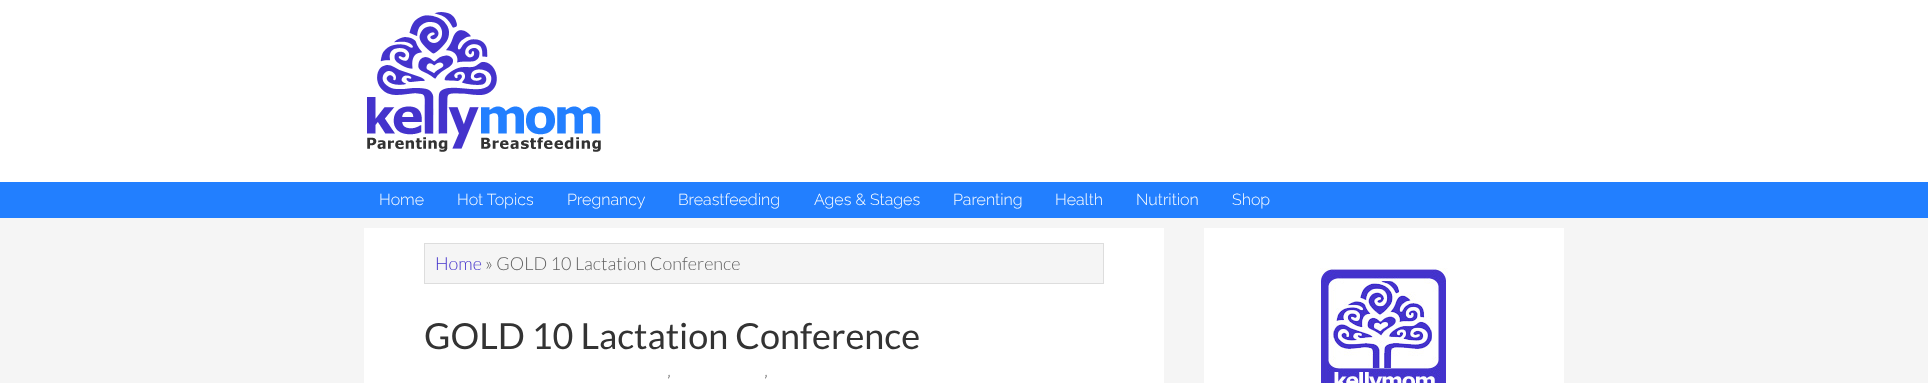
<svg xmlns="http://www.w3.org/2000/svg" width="1928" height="383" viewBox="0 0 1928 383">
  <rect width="100%" height="100%" fill="#f5f5f5"/>
  <rect x="0" y="0" width="1928" height="182" fill="#ffffff"/>
  <image x="367" y="12" width="234" height="140" href="img1.png"/>
  <rect x="0" y="182" width="1928" height="36" fill="#227fff"/>
  <text x="379" y="205" font-family="Raleway" font-size="16" font-weight="300" fill="#ffffff">Home</text>
  <text x="457" y="205" font-family="Raleway" font-size="16" font-weight="300" fill="#ffffff">Hot Topics</text>
  <text x="567" y="205" font-family="Raleway" font-size="16" font-weight="300" fill="#ffffff">Pregnancy</text>
  <text x="678" y="205" font-family="Raleway" font-size="16" font-weight="300" fill="#ffffff">Breastfeeding</text>
  <text x="814" y="205" font-family="Raleway" font-size="16" font-weight="300" fill="#ffffff">Ages &amp; Stages</text>
  <text x="953" y="205" font-family="Raleway" font-size="16" font-weight="300" fill="#ffffff">Parenting</text>
  <text x="1055" y="205" font-family="Raleway" font-size="16" font-weight="300" fill="#ffffff">Health</text>
  <text x="1136" y="205" font-family="Raleway" font-size="16" font-weight="300" fill="#ffffff">Nutrition</text>
  <text x="1232" y="205" font-family="Raleway" font-size="16" font-weight="300" fill="#ffffff">Shop</text>
  <rect x="364" y="228" width="800" height="155" fill="#ffffff"/>
  <rect x="424.5" y="243.5" width="679" height="40" fill="#f5f5f5" stroke="#dddddd"/>
  <text x="435" y="270" font-family="Lato" font-size="18" font-weight="300" fill="#4433cc">Home</text>
  <text x="485" y="270" font-family="Lato" font-size="18" font-weight="300" fill="#5f5f5f">» GOLD 10 Lactation Conference</text>
  <text x="424" y="349" font-family="Lato" font-size="36" fill="#333333">GOLD 10 Lactation Conference</text>
  <text x="667" y="388" font-family="Lato" font-size="18" font-weight="300" fill="#333333">’</text>
  <text x="764" y="388" font-family="Lato" font-size="18" font-weight="300" fill="#333333">’</text>
  <rect x="1204" y="228" width="360" height="155" fill="#ffffff"/>
  <image x="1320" y="268" width="128" height="115" href="img2.png"/>
</svg>
